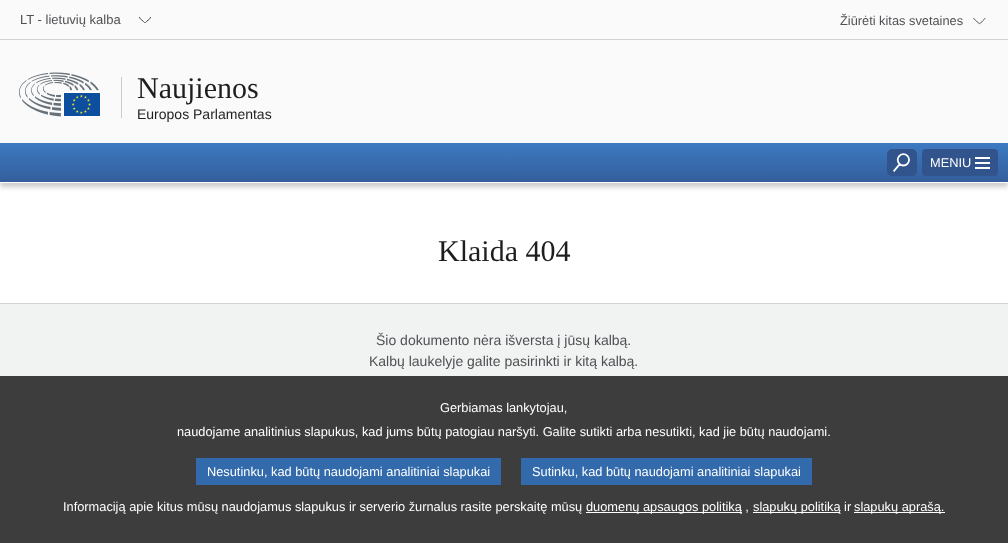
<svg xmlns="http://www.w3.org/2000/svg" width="1008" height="543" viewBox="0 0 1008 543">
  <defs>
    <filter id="blur1" x="-50%" y="-200%" width="200%" height="500%"><feGaussianBlur stdDeviation="2.5"/></filter>
    <linearGradient id="g1" gradientUnits="userSpaceOnUse" x1="504" y1="143" x2="504" y2="182"><stop offset="0" stop-color="#3d7ac1"/><stop offset="1" stop-color="#345e9c"/></linearGradient>
  </defs>
  <rect width="100%" height="100%" fill="#fafafa"/>
  <rect x="0" y="39" width="1008" height="1" fill="#d1d3d4"/>
  <text x="20" y="24" font-family="Liberation Sans" font-size="13" fill="#505154">LT - lietuvių kalba</text>
  <path d="M150.5 17C150.5 18.5 149 19.5 148 20C145 23.5 145 23.5 142 20C141 19.5 139.5 18.5 139.5 17" fill="none" stroke="#505154"/>
  <text x="840" y="25" font-family="Liberation Sans" font-size="12.8" fill="#505154">Žiūrėti kitas svetaines</text>
  <path d="M985 18C985 19 983.5 20 982.5 21C979.5 24.5 979.5 24.5 976.5 21C975.5 20 973.5 19 973.5 18" fill="none" stroke="#505154"/>
  <rect x="121" y="77" width="1" height="41" fill="#cccccc"/>
  <text x="137" y="98" font-family="Liberation Serif" font-size="30" fill="#1e1e1f">Naujienos</text>
  <image x="18" y="72" width="82" height="45" href="img1.png"/>
  <text x="137" y="119" font-family="Liberation Sans" font-size="14" fill="#1e1e1f">Europos Parlamentas</text>
  <rect x="0" y="183" width="1008" height="120" fill="#ffffff"/>
  <rect x="0" y="147" width="1008" height="40" fill="#000000" fill-opacity="0.2" filter="url(#blur1)"/>
  <rect x="0" y="143" width="1008" height="39" fill="url(#g1)"/>
  <rect x="0" y="182" width="1008" height="1" fill="#ffffff"/>
  <rect x="887.5" y="149.5" width="29" height="26" rx="4.5" fill="#32548d" stroke="#32548d"/>
  <image x="893" y="153" width="17" height="19" href="img2.png"/>
  <rect x="922" y="149" width="76" height="27" rx="4" fill="#32548d"/>
  <text x="930" y="167" font-family="Liberation Sans" font-size="12.8" fill="#ffffff">MENIU</text>
  <rect x="975" y="162" width="15" height="2" fill="#ffffff"/>
  <rect x="975" y="157" width="15" height="2" fill="#ffffff"/>
  <rect x="975" y="167" width="15" height="2" fill="#ffffff"/>
  <rect x="0" y="477" width="1008" height="66" fill="#3d3d3d"/>
  <text x="438" y="261" font-family="Liberation Serif" font-size="30" fill="#1e1e1f">Klaida 404</text>
  <rect x="0" y="304" width="1008" height="72" fill="#f1f2f2"/>
  <rect x="0" y="376" width="1008" height="100" fill="#3d3d3d"/>
  <rect x="0" y="303" width="1008" height="1" fill="#d1d3d4"/>
  <text x="376" y="345" font-family="Liberation Sans" font-size="14" fill="#505154">Šio dokumento nėra išversta į jūsų kalbą.</text>
  <text x="369" y="366" font-family="Liberation Sans" font-size="14" fill="#505154">Kalbų laukelyje galite pasirinkti ir kitą kalbą.</text>
  <rect x="0" y="476" width="1008" height="1" fill="#3b3b3b"/>
  <text x="440" y="412" font-family="Liberation Sans" font-size="12.8" fill="#ffffff">Gerbiamas lankytojau,</text>
  <text x="177" y="436" font-family="Liberation Sans" font-size="12.8" fill="#ffffff">naudojame analitinius slapukus, kad jums būtų patogiau naršyti. Galite sutikti arba nesutikti, kad jie būtų naudojami.</text>
  <rect x="196" y="458" width="305" height="27" fill="#326aab"/>
  <text x="207" y="476" font-family="Liberation Sans" font-size="12.8" fill="#ffffff">Nesutinku, kad būtų naudojami analitiniai slapukai</text>
  <rect x="521" y="458" width="291" height="27" fill="#326aab"/>
  <text x="532" y="476" font-family="Liberation Sans" font-size="12.8" fill="#ffffff">Sutinku, kad būtų naudojami analitiniai slapukai</text>
  <text x="63" y="511" font-family="Liberation Sans" font-size="12.8" fill="#ffffff">Informaciją apie kitus mūsų naudojamus slapukus ir serverio žurnalus rasite perskaitę mūsų</text>
  <rect x="586" y="512" width="156" height="1" fill="#ffffff"/>
  <text x="586" y="511" font-family="Liberation Sans" font-size="12.8" fill="#ffffff">duomenų apsaugos politiką ,</text>
  <rect x="753" y="512" width="87" height="1" fill="#ffffff"/>
  <text x="753" y="511" font-family="Liberation Sans" font-size="12.8" fill="#ffffff">slapukų politiką ir</text>
  <rect x="854" y="512" width="91" height="1" fill="#ffffff"/>
  <text x="854" y="511" font-family="Liberation Sans" font-size="12.8" fill="#ffffff">slapukų aprašą.</text>
</svg>
